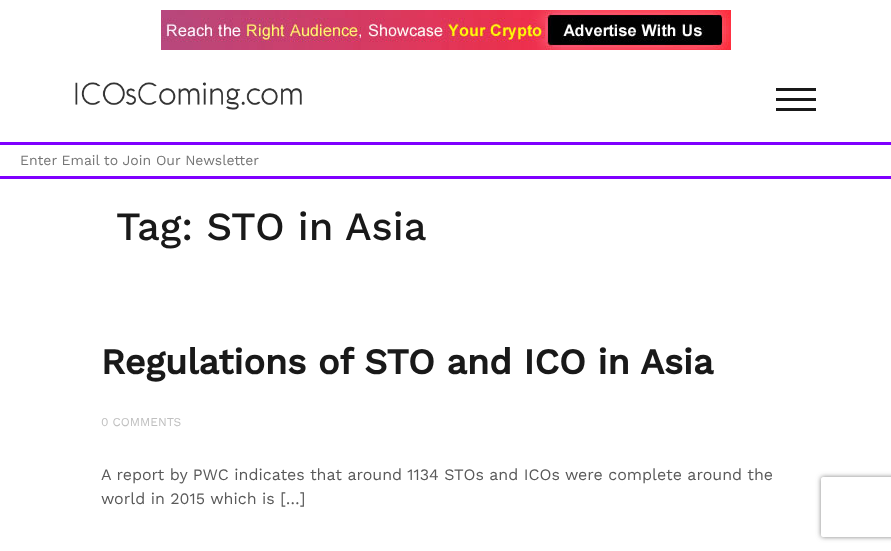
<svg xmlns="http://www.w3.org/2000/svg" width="891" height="551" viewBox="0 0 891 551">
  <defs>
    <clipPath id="clip1"><path d="M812 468H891V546H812ZM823 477H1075C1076 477 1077 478 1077 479V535C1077 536 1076 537 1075 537H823C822 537 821 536 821 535V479C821 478 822 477 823 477Z" clip-rule="evenodd"/></clipPath>
    <filter id="blur1" x="-50%" y="-200%" width="200%" height="500%"><feGaussianBlur stdDeviation="2.5"/></filter>
  </defs>
  <rect width="100%" height="100%" fill="#ffffff"/>
  <image x="161" y="10" width="570" height="40" href="img1.png"/>
  <image x="75" y="82" width="227" height="28" href="img2.png"/>
  <rect x="776" y="98" width="40" height="3" fill="#191919"/>
  <rect x="776" y="88" width="40" height="3" fill="#191919"/>
  <rect x="776" y="108" width="40" height="3" fill="#191919"/>
  <rect x="0" y="142" width="891" height="3" fill="#7f00ff"/>
  <text x="20" y="165" font-family="Work Sans" font-size="14" fill="#757575">Enter Email to Join Our Newsletter</text>
  <rect x="0" y="176" width="891" height="3" fill="#7f00ff"/>
  <text x="116" y="240" font-family="Work Sans" font-size="40" font-weight="500" fill="#191919">Tag: STO in Asia</text>
  <text x="101" y="374" font-family="Work Sans" font-size="36" font-weight="bold" fill="#191919">Regulations of STO and ICO in Asia</text>
  <text x="101" y="426" font-family="Work Sans" font-size="12" fill="#bfbfbf">0 COMMENTS</text>
  <text x="101" y="480" font-family="Work Sans" font-size="16" fill="#595959">A report by PWC indicates that around 1134 STOs and ICOs were complete around the</text>
  <text x="101" y="504" font-family="Work Sans" font-size="16" fill="#595959">world in 2015 which is […]</text>
  <g clip-path="url(#clip1)">
    <rect x="821" y="477" width="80" height="60" rx="2" fill="#808080" filter="url(#blur1)"/>
  </g>
</svg>
